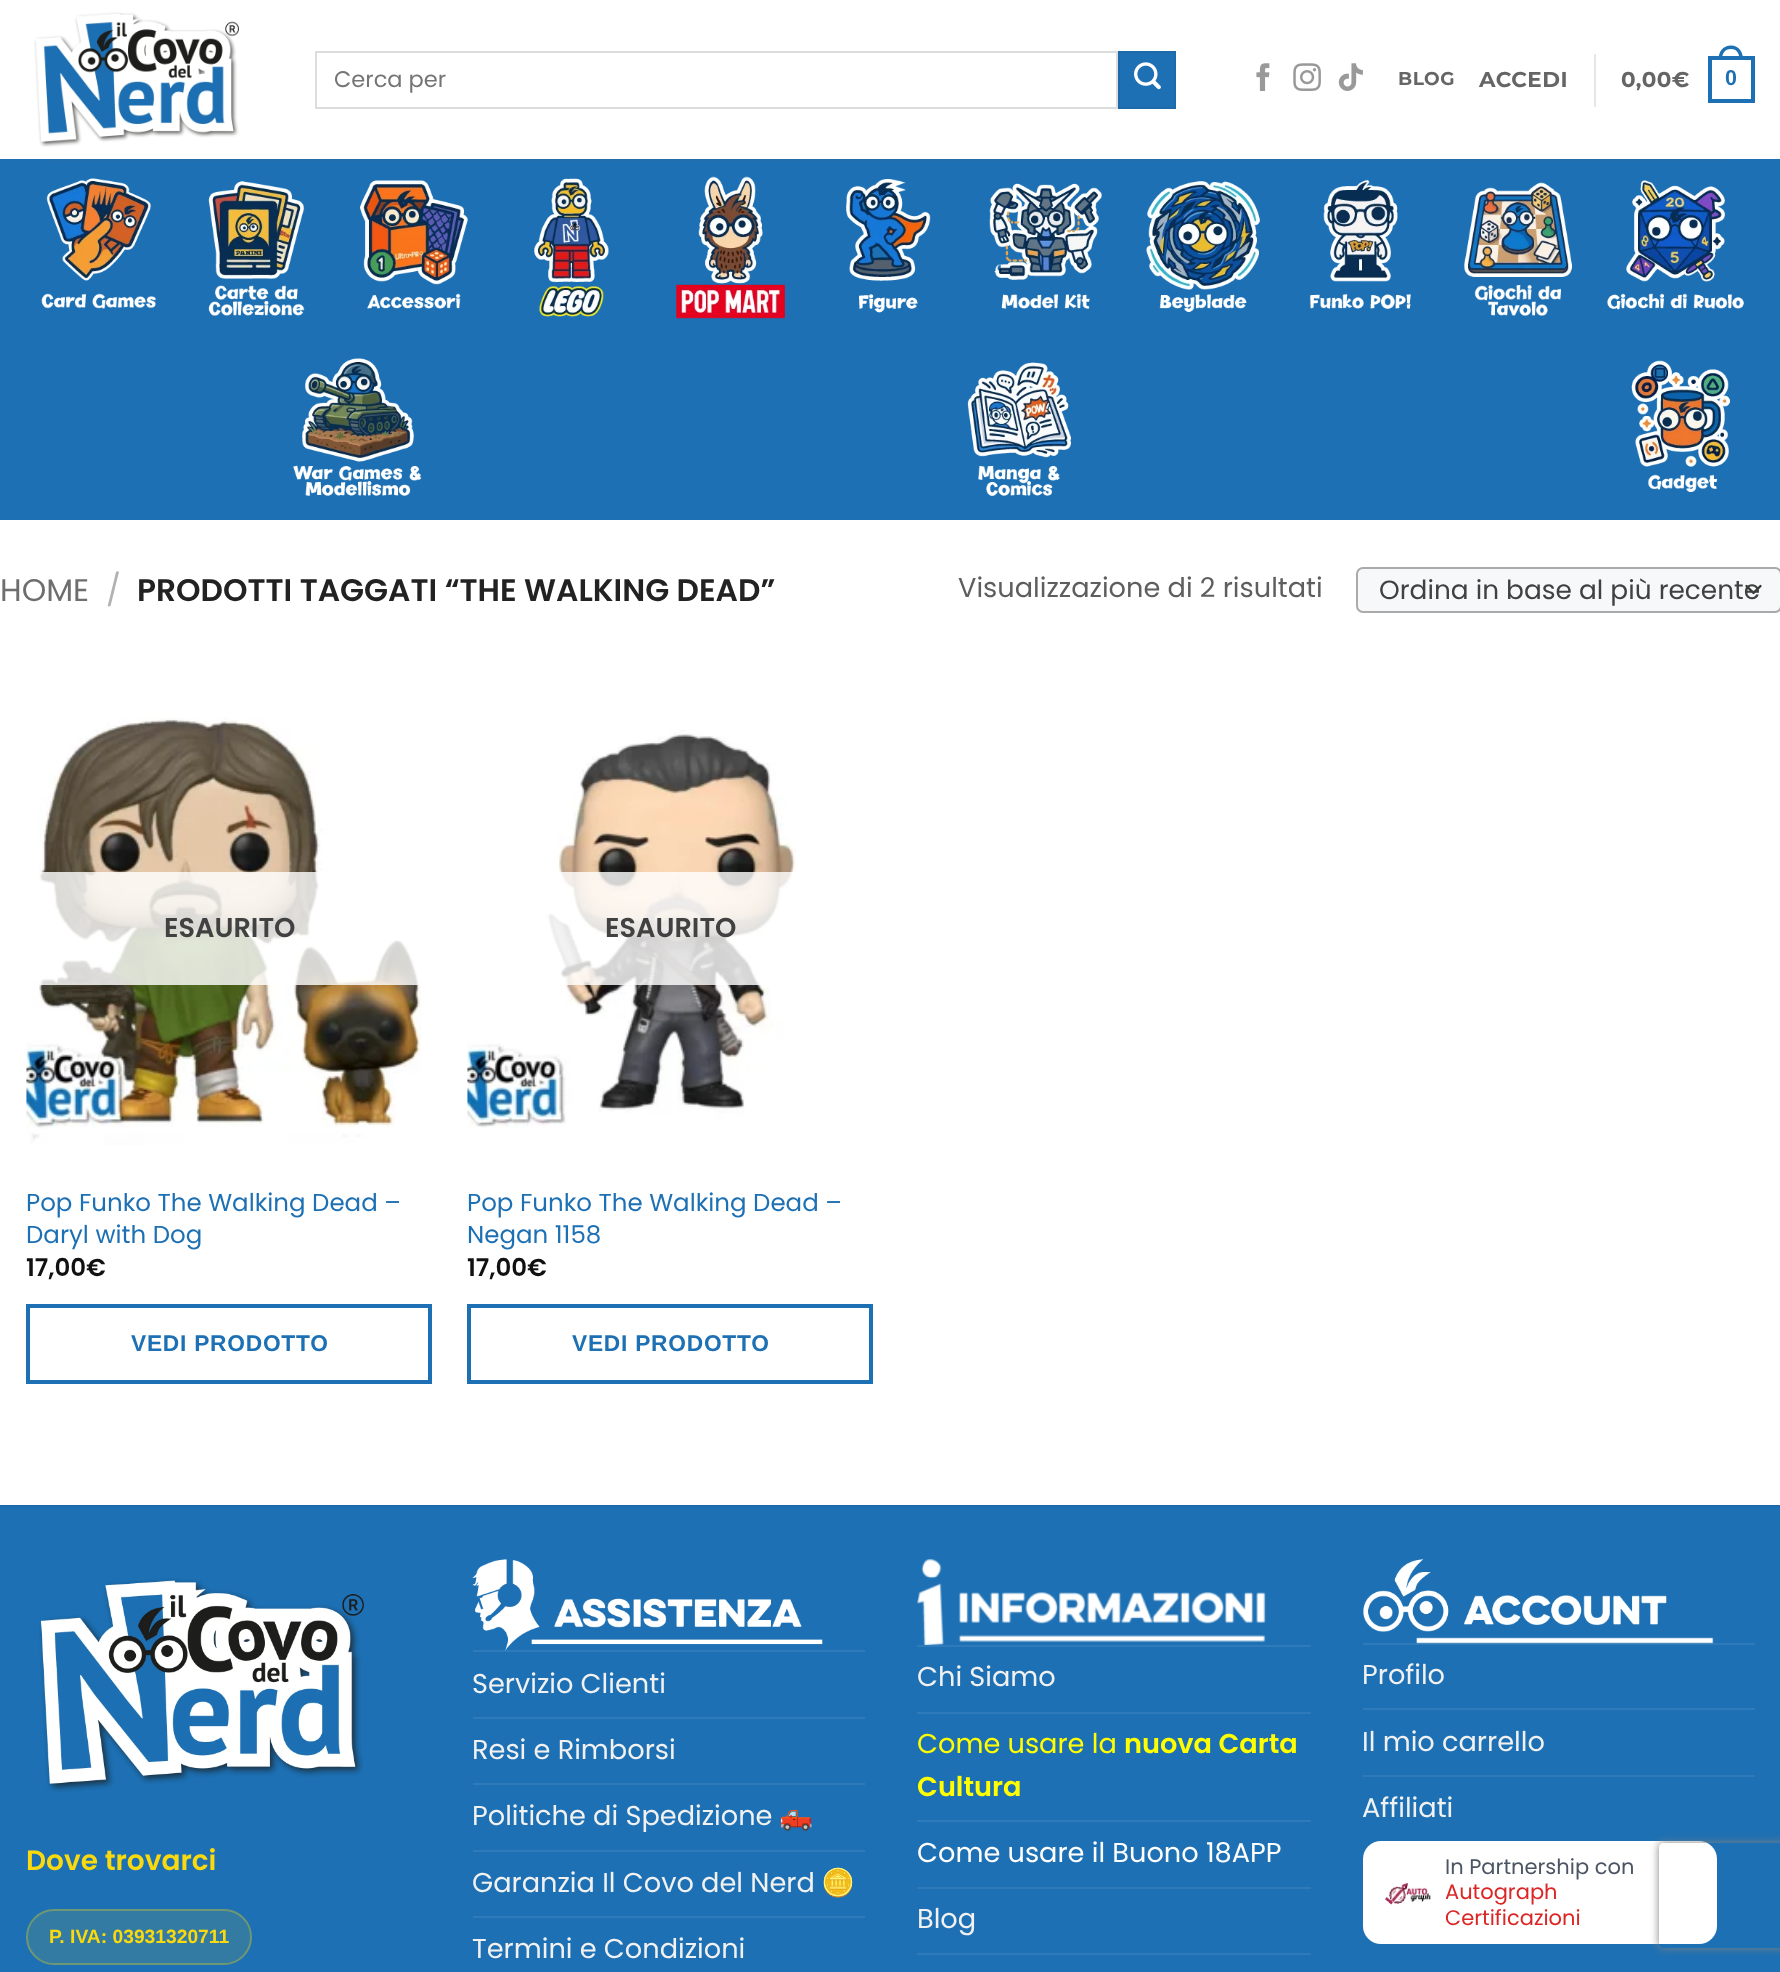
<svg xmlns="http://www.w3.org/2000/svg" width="1780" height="1972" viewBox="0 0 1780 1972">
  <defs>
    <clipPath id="clip1"><path d="M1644 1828H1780V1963H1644ZM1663 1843H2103C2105 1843 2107 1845 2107 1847V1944C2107 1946 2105 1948 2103 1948H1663C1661 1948 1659 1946 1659 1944V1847C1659 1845 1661 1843 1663 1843Z" clip-rule="evenodd"/></clipPath>
    <filter id="blur1" x="-50%" y="-200%" width="200%" height="500%"><feGaussianBlur stdDeviation="4.5"/></filter>
  </defs>
  <rect width="100%" height="100%" fill="#ffffff"/>
  <image x="34" y="12" width="205" height="135" href="img1.png"/>
  <rect x="316" y="52" width="801" height="56" fill="none" stroke="#dddddd" stroke-width="2"/>
  <text x="334" y="87" font-family="Poppins" font-size="22.5" fill="#757575">Cerca per</text>
  <rect x="1119" y="52" width="56" height="56" fill="#1d70b3" stroke="#1c6aaa" stroke-width="2"/>
  <image x="1134" y="62" width="27" height="28" href="img2.png"/>
  <image x="1256" y="63" width="14" height="28" href="img3.png"/>
  <image x="1293" y="63" width="28" height="28" href="img4.png"/>
  <image x="1338" y="63" width="25" height="28" href="img5.png"/>
  <text x="1398" y="85" font-family="Montserrat" font-size="18.5" font-weight="bold" letter-spacing="0.5" fill="#656565">BLOG</text>
  <text x="1479" y="87" font-family="Montserrat" font-size="21.5" font-weight="bold" letter-spacing="0.5" fill="#656565">ACCEDI</text>
  <rect x="1594" y="54" width="2" height="53" fill="#e6e6e6"/>
  <text x="1621" y="87" font-family="Montserrat" font-size="21.5" font-weight="bold" letter-spacing="0.5" fill="#656565">0,00€</text>
  <rect x="1710" y="58" width="43" height="43" fill="none" stroke="#1d70b3" stroke-width="4"/>
  <path d="M1731 45.5C1739 45.5 1743 52 1743 59.5H1718.5C1718.5 52 1722.5 45.5 1731 45.5ZM1731 49C1737 49 1739.5 54 1739.5 59.5H1722C1722 54 1724.5 49 1731 49Z" fill="#1d70b3" fill-rule="evenodd"/>
  <text x="1725" y="85" font-family="Liberation Sans" font-size="21.5" font-weight="bold" letter-spacing="0.5" fill="#1d70b3">0</text>
  <rect x="0" y="159" width="1780" height="361" fill="#1d70b3"/>
  <rect x="53" y="159" width="1676" height="2" fill="#246eaa"/>
  <image x="41" y="178" width="116" height="131" href="img6.png"/>
  <image x="208" y="181" width="97" height="135" href="img7.png"/>
  <image x="360" y="180" width="108" height="129" href="img8.png"/>
  <image x="534" y="178" width="75" height="139" href="img9.png"/>
  <image x="676" y="176" width="109" height="143" href="img10.png"/>
  <image x="846" y="179" width="85" height="134" href="img11.png"/>
  <image x="989" y="183" width="113" height="126" href="img12.png"/>
  <image x="1146" y="181" width="114" height="131" href="img13.png"/>
  <image x="1309" y="179" width="102" height="130" href="img14.png"/>
  <image x="1464" y="182" width="108" height="134" href="img15.png"/>
  <image x="1607" y="180" width="137" height="130" href="img16.png"/>
  <image x="293" y="358" width="129" height="138" href="img17.png"/>
  <image x="967" y="362" width="104" height="134" href="img18.png"/>
  <image x="1631" y="360" width="99" height="132" href="img19.png"/>
  <text x="0" y="601" font-family="Poppins" font-size="31.25" fill="#6e6e6e">HOME</text>
  <text x="106" y="601" font-family="Poppins" font-size="31.25" fill="#b2b2b2">/</text>
  <text x="137" y="601" font-family="Poppins" font-size="31.25" font-weight="600" fill="#222222">PRODOTTI TAGGATI “THE WALKING DEAD”</text>
  <text x="958" y="597" font-family="Poppins" font-size="27.2" fill="#5e5e5e">Visualizzazione di 2 risultati</text>
  <rect x="1356" y="567" width="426" height="46" rx="7" fill="#f7f8f9"/>
  <path d="M1746.5 586L1753.5 593L1760.5 586" fill="none" stroke="#333333" stroke-width="2.3" stroke-linecap="round" stroke-linejoin="round"/>
  <rect x="1357" y="568" width="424" height="44" rx="6" fill="none" stroke="#aaaaaa" stroke-width="2"/>
  <text x="1379" y="599" font-family="Poppins" font-size="26.4" fill="#414141">Ordina in base al più recente</text>
  <image x="26" y="717" width="396" height="428" href="img20.png"/>
  <rect x="39" y="872" width="382" height="113" fill="#ffffff" fill-opacity="0.81"/>
  <text x="164" y="937" font-family="Poppins" font-size="27.2" font-weight="600" fill="#414141">ESAURITO</text>
  <text x="26" y="1211" font-family="Poppins" font-size="24.5" fill="#1d70b3">Pop Funko The Walking Dead –</text>
  <text x="26" y="1243" font-family="Poppins" font-size="24.5" fill="#1d70b3">Daryl with Dog</text>
  <text x="26" y="1276" font-family="Poppins" font-size="24.5" font-weight="600" fill="#111111">17,00€</text>
  <rect x="28" y="1306" width="402" height="76" fill="none" stroke="#1d70b3" stroke-width="4"/>
  <text x="131" y="1351" font-family="Liberation Sans" font-size="22.75" font-weight="bold" letter-spacing="0.75" fill="#1d70b3">VEDI PRODOTTO</text>
  <image x="467" y="730" width="329" height="398" href="img21.png"/>
  <rect x="546" y="872" width="250" height="113" fill="#ffffff" fill-opacity="0.81"/>
  <text x="605" y="937" font-family="Poppins" font-size="27.2" font-weight="600" fill="#414141">ESAURITO</text>
  <text x="467" y="1211" font-family="Poppins" font-size="24.5" fill="#1d70b3">Pop Funko The Walking Dead –</text>
  <text x="467" y="1243" font-family="Poppins" font-size="24.5" fill="#1d70b3">Negan 1158</text>
  <text x="467" y="1276" font-family="Poppins" font-size="24.5" font-weight="600" fill="#111111">17,00€</text>
  <rect x="469" y="1306" width="402" height="76" fill="none" stroke="#1d70b3" stroke-width="4"/>
  <text x="572" y="1351" font-family="Liberation Sans" font-size="22.75" font-weight="bold" letter-spacing="0.75" fill="#1d70b3">VEDI PRODOTTO</text>
  <rect x="0" y="1507" width="1780" height="465" fill="#1d70b3"/>
  <rect x="0" y="1505" width="1780" height="2" fill="#1c6aaa"/>
  <image x="39" y="1578" width="325" height="214" href="img22.png"/>
  <text x="26" y="1870" font-family="Poppins" font-size="28" font-weight="600" fill="#fad90e">Dove trovarci</text>
  <rect x="26" y="1909" width="226" height="56" rx="28" fill="#337ba2"/>
  <rect x="27" y="1910" width="224" height="54" rx="27" fill="none" stroke="#fad90e" stroke-opacity="0.3" stroke-width="2"/>
  <text x="49" y="1943" font-family="Liberation Sans" font-size="19.25" font-weight="bold" fill="#fad90e">P. IVA: 03931320711</text>
  <rect x="473" y="1650" width="392" height="2" fill="#2f7bb9"/>
  <image x="472" y="1559" width="351" height="92" href="img23.png"/>
  <text x="472" y="1693" font-family="Poppins" font-size="27.2" fill="#f1f1f1">Servizio Clienti</text>
  <rect x="473" y="1717" width="392" height="2" fill="#2f7bb9"/>
  <text x="472" y="1759" font-family="Poppins" font-size="27.2" fill="#f1f1f1">Resi e Rimborsi</text>
  <rect x="473" y="1783" width="392" height="2" fill="#2f7bb9"/>
  <text x="472" y="1825" font-family="Poppins" font-size="27.2" fill="#f1f1f1">Politiche di Spedizione</text>
  <text x="779" y="1825" font-family="Noto Color Emoji" font-size="27.2" fill="#f1f1f1">🛻</text>
  <rect x="473" y="1850" width="392" height="2" fill="#2f7bb9"/>
  <text x="472" y="1892" font-family="Poppins" font-size="27.2" fill="#f1f1f1">Garanzia Il Covo del Nerd</text>
  <text x="821" y="1892" font-family="Noto Color Emoji" font-size="27.2" fill="#f1f1f1">🪙</text>
  <rect x="473" y="1916" width="392" height="2" fill="#2f7bb9"/>
  <text x="472" y="1958" font-family="Poppins" font-size="27.2" fill="#f1f1f1">Termini e Condizioni</text>
  <image x="917" y="1559" width="349" height="86" href="img24.png"/>
  <rect x="917" y="1645" width="394" height="2" fill="#2f7bb9"/>
  <text x="917" y="1686" font-family="Poppins" font-size="27.2" fill="#f1f1f1">Chi Siamo</text>
  <rect x="917" y="1712" width="394" height="2" fill="#2f7bb9"/>
  <text x="917" y="1753" font-family="Poppins" font-size="27.2" fill="#ffff00">Come usare la</text>
  <text x="1124" y="1753" font-family="Poppins" font-size="27.2" font-weight="600" fill="#ffff00">nuova Carta</text>
  <text x="917" y="1796" font-family="Poppins" font-size="27.2" font-weight="600" fill="#ffff00">Cultura</text>
  <rect x="917" y="1820" width="394" height="2" fill="#2f7bb9"/>
  <text x="917" y="1862" font-family="Poppins" font-size="27.2" fill="#ffffff">Come usare il Buono 18APP</text>
  <rect x="917" y="1887" width="394" height="2" fill="#2f7bb9"/>
  <text x="917" y="1928" font-family="Poppins" font-size="27.2" fill="#f1f1f1">Blog</text>
  <rect x="917" y="1953" width="394" height="2" fill="#2f7bb9"/>
  <rect x="1363" y="1643" width="392" height="2" fill="#2f7bb9"/>
  <image x="1363" y="1559" width="351" height="85" href="img25.png"/>
  <text x="1362" y="1684" font-family="Poppins" font-size="27.2" fill="#f1f1f1">Profilo</text>
  <rect x="1363" y="1708" width="392" height="2" fill="#2f7bb9"/>
  <text x="1362" y="1751" font-family="Poppins" font-size="27.2" fill="#f1f1f1">Il mio carrello</text>
  <rect x="1363" y="1775" width="392" height="2" fill="#2f7bb9"/>
  <text x="1362" y="1817" font-family="Poppins" font-size="27.2" fill="#f1f1f1">Affiliati</text>
  <rect x="1363" y="1841" width="354" height="103" rx="18" fill="#ffffff"/>
  <image x="1385" y="1883" width="46" height="22" href="img26.png"/>
  <text x="1445" y="1874" font-family="Poppins" font-size="21" fill="#4b5563">In Partnership con</text>
  <text x="1445" y="1899" font-family="Poppins" font-size="21" fill="#dc2626">Autograph</text>
  <text x="1445" y="1925" font-family="Poppins" font-size="21" fill="#dc2626">Certificazioni</text>
  <g clip-path="url(#clip1)">
    <rect x="1659" y="1843" width="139" height="105" rx="4" fill="#808080" filter="url(#blur1)"/>
  </g>
</svg>
